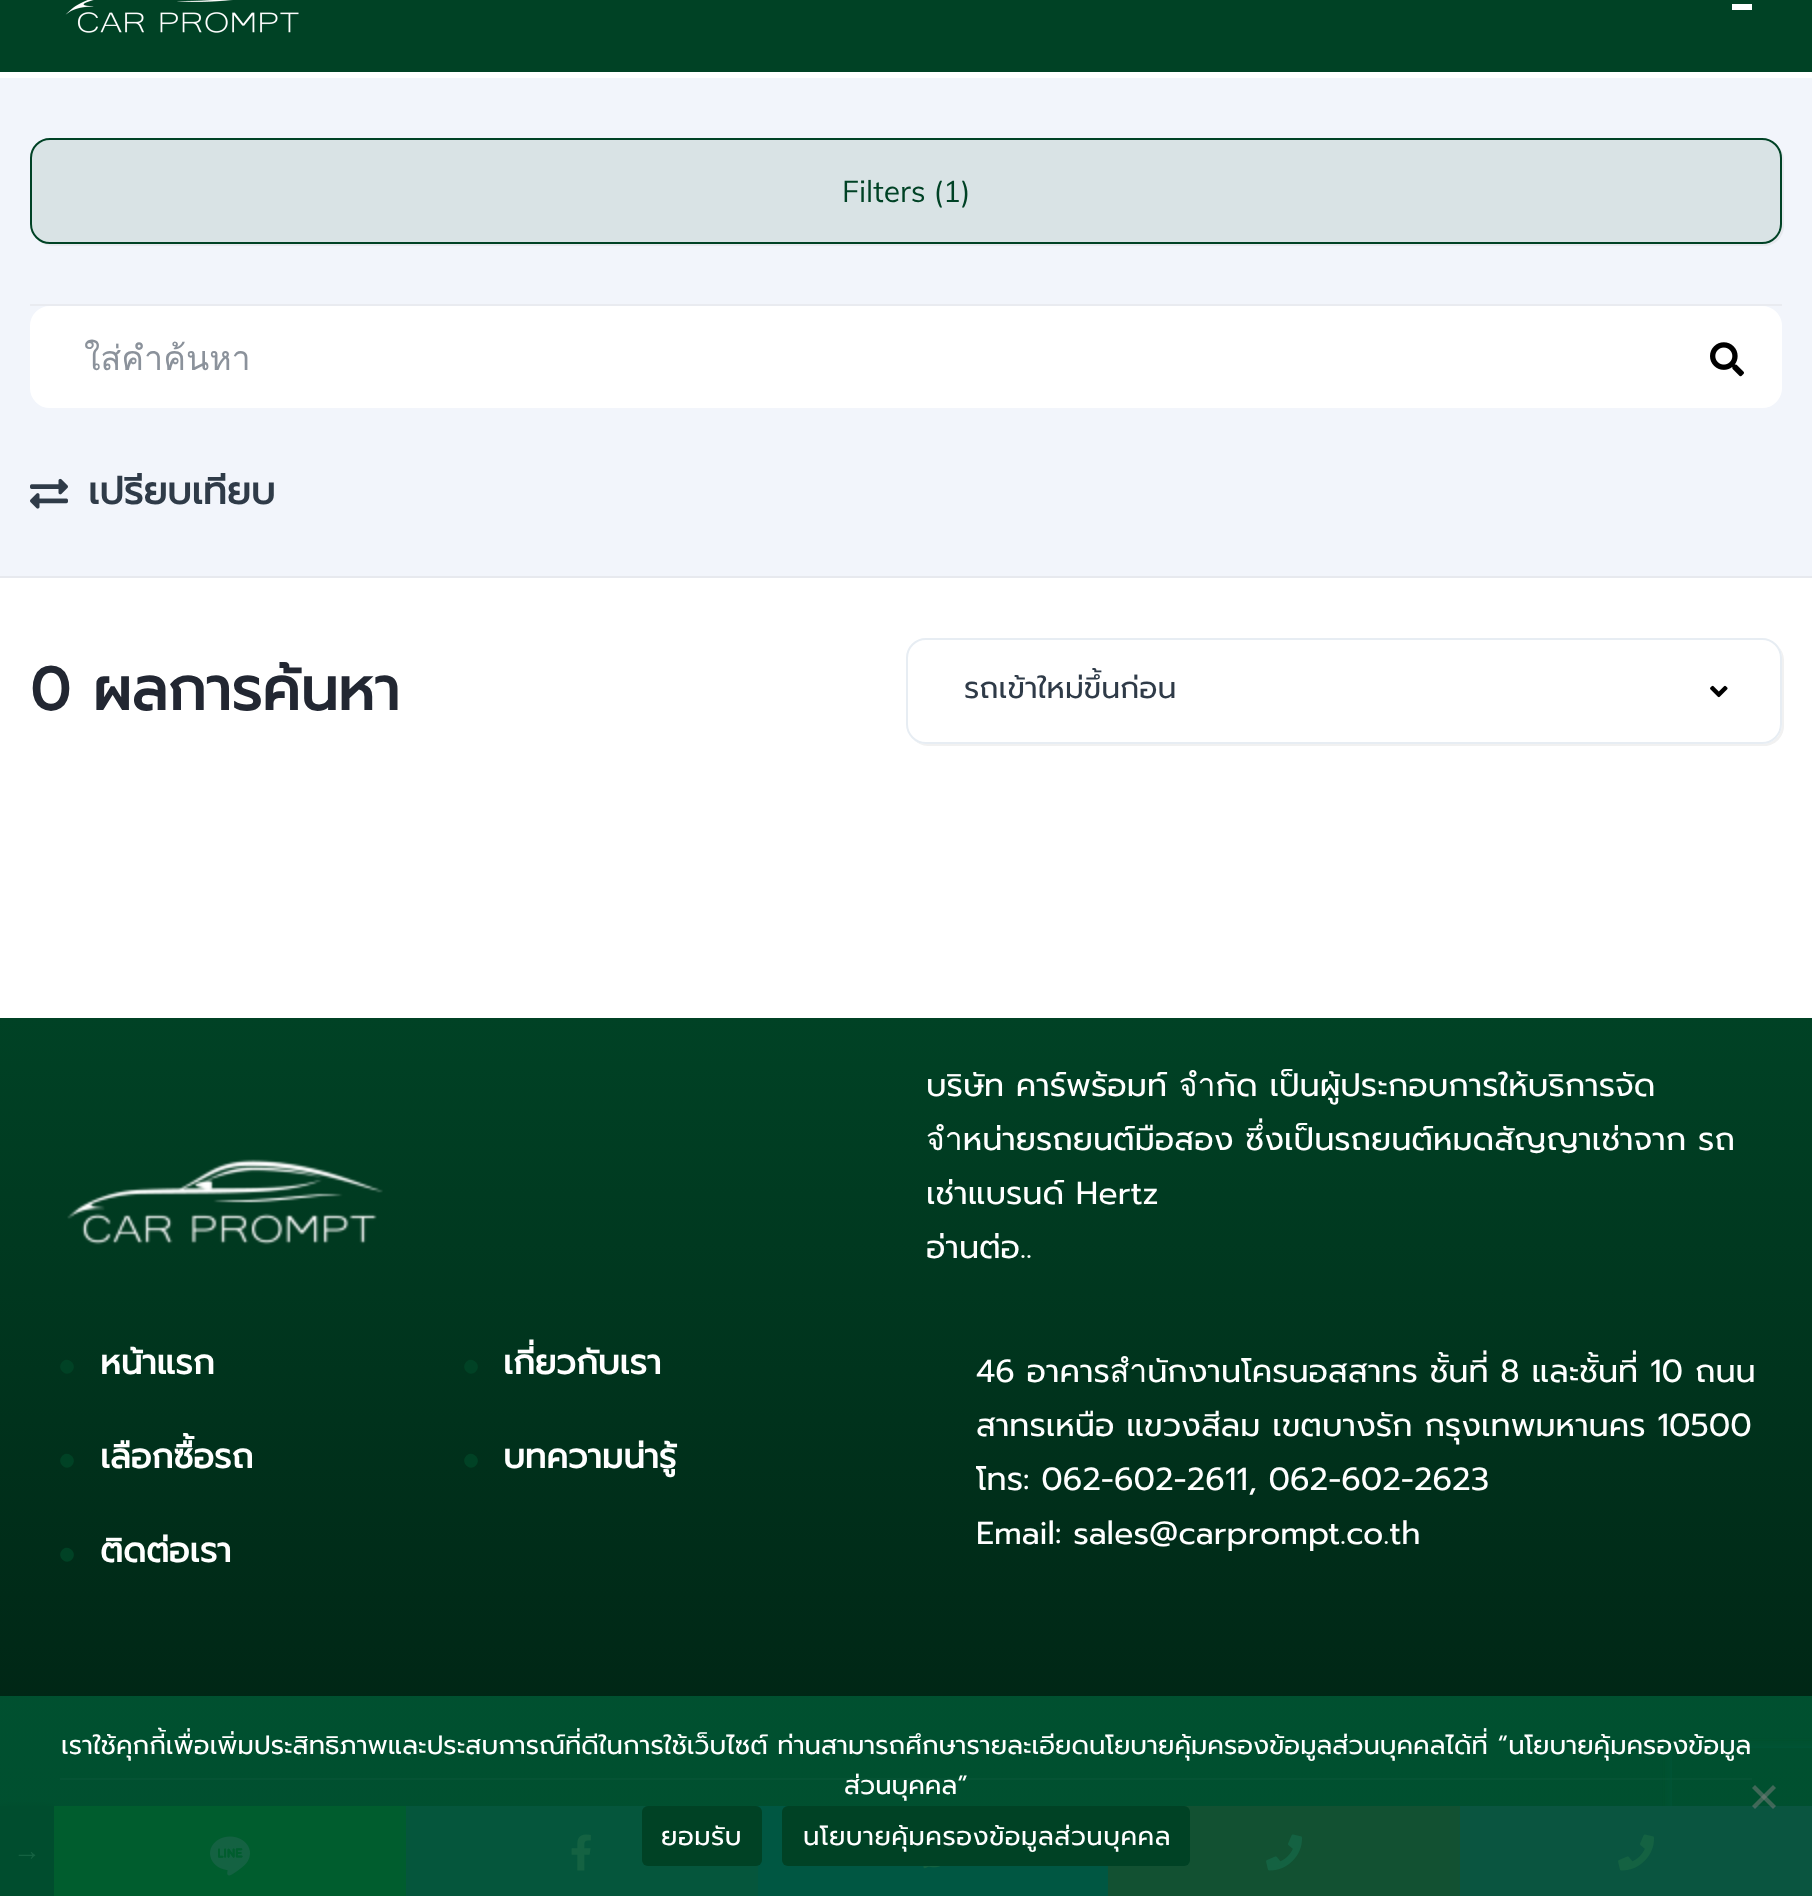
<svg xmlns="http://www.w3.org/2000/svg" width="1812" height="1896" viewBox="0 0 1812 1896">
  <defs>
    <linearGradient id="g1" gradientUnits="userSpaceOnUse" x1="906" y1="1018" x2="906" y2="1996"><stop offset="0" stop-color="#004225"/><stop offset="1" stop-color="#001b0f"/></linearGradient>
    <linearGradient id="g2" gradientUnits="userSpaceOnUse" x1="906" y1="1018" x2="906" y2="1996"><stop offset="0" stop-color="#005331"/><stop offset="1" stop-color="#004f2f"/></linearGradient>
    <clipPath id="clip1"><path d="M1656 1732H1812V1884H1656ZM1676 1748H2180C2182 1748 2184 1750 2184 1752V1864C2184 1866 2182 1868 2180 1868H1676C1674 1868 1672 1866 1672 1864V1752C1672 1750 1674 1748 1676 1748Z" clip-rule="evenodd"/></clipPath>
    <filter id="blur1" x="-50%" y="-200%" width="200%" height="500%"><feGaussianBlur stdDeviation="5"/></filter>
    <filter id="blur2" x="-50%" y="-200%" width="200%" height="500%"><feGaussianBlur stdDeviation="6"/></filter>
  </defs>
  <rect width="100%" height="100%" fill="#ffffff"/>
  <rect x="0" y="0" width="1812" height="72" fill="#004225"/>
  <image x="65" y="0" width="234" height="33" href="img1.png"/>
  <rect x="1732" y="4" width="20" height="6" fill="#ffffff"/>
  <rect x="0" y="78" width="1812" height="498" fill="#f2f5fb"/>
  <path d="M37 239C41 243 46 246 52 246H1764C1775 246 1784 237 1784 226V160C1784 154 1781 149 1777 145C1780 148 1782 153 1782 158V224C1782 235 1773 244 1762 244H50C45 244 40 242 37 239Z" fill="#e7e9ee"/>
  <rect x="31" y="139" width="1750" height="104" rx="19" fill="#004225" fill-opacity="0.1" stroke="#004225" stroke-width="2"/>
  <text x="842" y="202" font-family="Muli" font-size="30" fill="#004225">Filters (1)</text>
  <rect x="0" y="576" width="1812" height="2" fill="#e7e9ee"/>
  <rect x="30" y="304" width="1752" height="2" fill="#e9ebf0"/>
  <rect x="31" y="307" width="1750" height="100" rx="19" fill="#ffffff" stroke="#ffffff" stroke-width="2"/>
  <text x="84" y="370" font-family="Loma" font-size="34" fill="#8b929b">ใส่คำค้นหา</text>
  <image x="1710" y="342" width="34" height="35" href="img2.png"/>
  <image x="30" y="478" width="38" height="31" href="img3.png"/>
  <text x="88" y="504" font-family="Prompt" font-size="38" font-weight="bold" fill="#2f3b48">เปรียบเทียบ</text>
  <text x="30" y="710" font-family="Prompt" font-size="60" font-weight="bold" fill="#222732">0 ผลการค้นหา</text>
  <path d="M913 739C917 743 922 746 928 746H1764C1775 746 1784 737 1784 726V660C1784 654 1781 649 1777 645C1780 648 1782 653 1782 658V724C1782 735 1773 744 1762 744H926C921 744 916 742 913 739Z" fill="#f1f1f1"/>
  <rect x="907" y="639" width="874" height="104" rx="19" fill="#ffffff" stroke="#e7edf3" stroke-width="2"/>
  <text x="964" y="698" font-family="Prompt" font-size="30" fill="#2f3b48">รถเข้าใหม่ขึ้นก่อน</text>
  <image x="1710" y="685" width="18" height="13" href="img4.png"/>
  <rect x="0" y="1018" width="1812" height="678" fill="url(#g1)"/>
  <rect x="0" y="1696" width="1812" height="110" fill="url(#g2)"/>
  <image x="67" y="1159" width="316" height="86" href="img5.png"/>
  <text x="926" y="1096" font-family="Prompt" font-size="32" fill="#ffffff">บริษัท คาร์พร้อมท์ จำกัด เป็นผู้ประกอบการให้บริการจัด</text>
  <text x="926" y="1150" font-family="Prompt" font-size="32" fill="#ffffff">จำหน่ายรถยนต์มือสอง ซึ่งเป็นรถยนต์หมดสัญญาเช่าจาก รถ</text>
  <text x="926" y="1204" font-family="Prompt" font-size="32" fill="#ffffff">เช่าแบรนด์ Hertz</text>
  <text x="926" y="1258" font-family="Prompt" font-size="32" fill="#ffffff">อ่านต่อ..</text>
  <path d="M62 1362C68.5 1355.5 78 1365 72 1371.5C65.5 1378 56 1368.5 62 1362Z" fill="#004225"/>
  <text x="100" y="1374" font-family="Prompt" font-size="34" font-weight="bold" fill="#ffffff">หน้าแรก</text>
  <path d="M466 1362C472.5 1355.5 482 1365 476 1371.5C469.5 1378 460 1368.5 466 1362Z" fill="#004225"/>
  <text x="503" y="1374" font-family="Prompt" font-size="34" font-weight="bold" fill="#ffffff">เกี่ยวกับเรา</text>
  <path d="M62 1456C68.5 1449.5 78 1459 72 1465.5C65.5 1472 56 1462.5 62 1456Z" fill="#004225"/>
  <text x="100" y="1468" font-family="Prompt" font-size="34" font-weight="bold" fill="#ffffff">เลือกซื้อรถ</text>
  <path d="M466 1456C472.5 1449.5 482 1459 476 1465.5C469.5 1472 460 1462.5 466 1456Z" fill="#004225"/>
  <text x="503" y="1468" font-family="Prompt" font-size="34" font-weight="bold" fill="#ffffff">บทความน่ารู้</text>
  <path d="M62 1550C68.5 1543.5 78 1553 72 1559.5C65.5 1566 56 1556.5 62 1550Z" fill="#004225"/>
  <text x="100" y="1562" font-family="Prompt" font-size="34" font-weight="bold" fill="#ffffff">ติดต่อเรา</text>
  <text x="976" y="1382" font-family="Prompt" font-size="32" fill="#ffffff">46 อาคารสำนักงานโครนอสสาทร ชั้นที่ 8 และชั้นที่ 10 ถนน</text>
  <text x="976" y="1436" font-family="Prompt" font-size="32" fill="#ffffff">สาทรเหนือ แขวงสีลม เขตบางรัก กรุงเทพมหานคร 10500</text>
  <text x="976" y="1490" font-family="Prompt" font-size="32" fill="#ffffff">โทร: 062-602-2611, 062-602-2623</text>
  <text x="976" y="1544" font-family="Prompt" font-size="32" fill="#ffffff">Email: sales@carprompt.co.th</text>
  <rect x="60" y="1778" width="1692" height="2" fill="#055334"/>
  <g clip-path="url(#clip1)">
    <rect x="1672" y="1748" width="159" height="120" rx="4" fill="#0a5838" filter="url(#blur1)"/>
  </g>
  <text x="61" y="1754" font-family="Prompt" font-size="26" fill="#ffffff">เราใช้คุกกี้เพื่อเพิ่มประสิทธิภาพและประสบการณ์ที่ดีในการใช้เว็บไซต์ ท่านสามารถศึกษารายละเอียดนโยบายคุ้มครองข้อมูลส่วนบุคคลได้ที่ “นโยบายคุ้มครองข้อมูล</text>
  <text x="844" y="1794" font-family="Prompt" font-size="26" fill="#ffffff">ส่วนบุคคล”</text>
  <rect x="1460" y="1806" width="352" height="90" fill="#0a5540"/>
  <path d="M1773 1785L1776 1788L1755 1809L1752 1806Z" fill="#808080" fill-opacity="0.5"/>
  <path d="M1752 1788L1755 1785L1776 1806L1773 1809Z" fill="#808080" fill-opacity="0.5"/>
  <rect x="406" y="1806" width="352" height="90" fill="#05563c"/>
  <rect x="758" y="1806" width="350" height="90" fill="#005742"/>
  <rect x="642" y="1806" width="120" height="60" rx="6" fill="#004225"/>
  <text x="661" y="1845" font-family="Prompt" font-size="26" letter-spacing="0.5" fill="#ffffff">ยอมรับ</text>
  <rect x="1108" y="1806" width="352" height="90" fill="#125132"/>
  <rect x="782" y="1806" width="408" height="60" rx="6" fill="#004225"/>
  <text x="803" y="1845" font-family="Prompt" font-size="26" letter-spacing="0.5" fill="#ffffff">นโยบายคุ้มครองข้อมูลส่วนบุคคล</text>
  <rect x="0" y="1812" width="54" height="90" fill="#004d2e" fill-opacity="0.16" filter="url(#blur2)"/>
  <rect x="0" y="1806" width="54" height="90" fill="#004d2e"/>
  <text x="13" y="1860" font-family="Liberation Serif" font-size="28" fill="#146242">→</text>
  <rect x="54" y="1806" width="352" height="90" fill="#005d2e"/>
  <image x="210" y="1836" width="40" height="40" href="img6.png"/>
  <image x="571" y="1834" width="20" height="37" href="img7.png"/>
  <image x="923" y="1866" width="18" height="3" href="img8.png"/>
  <image x="1266" y="1834" width="37" height="37" href="img9.png"/>
  <image x="1618" y="1834" width="37" height="37" href="img10.png"/>
</svg>
